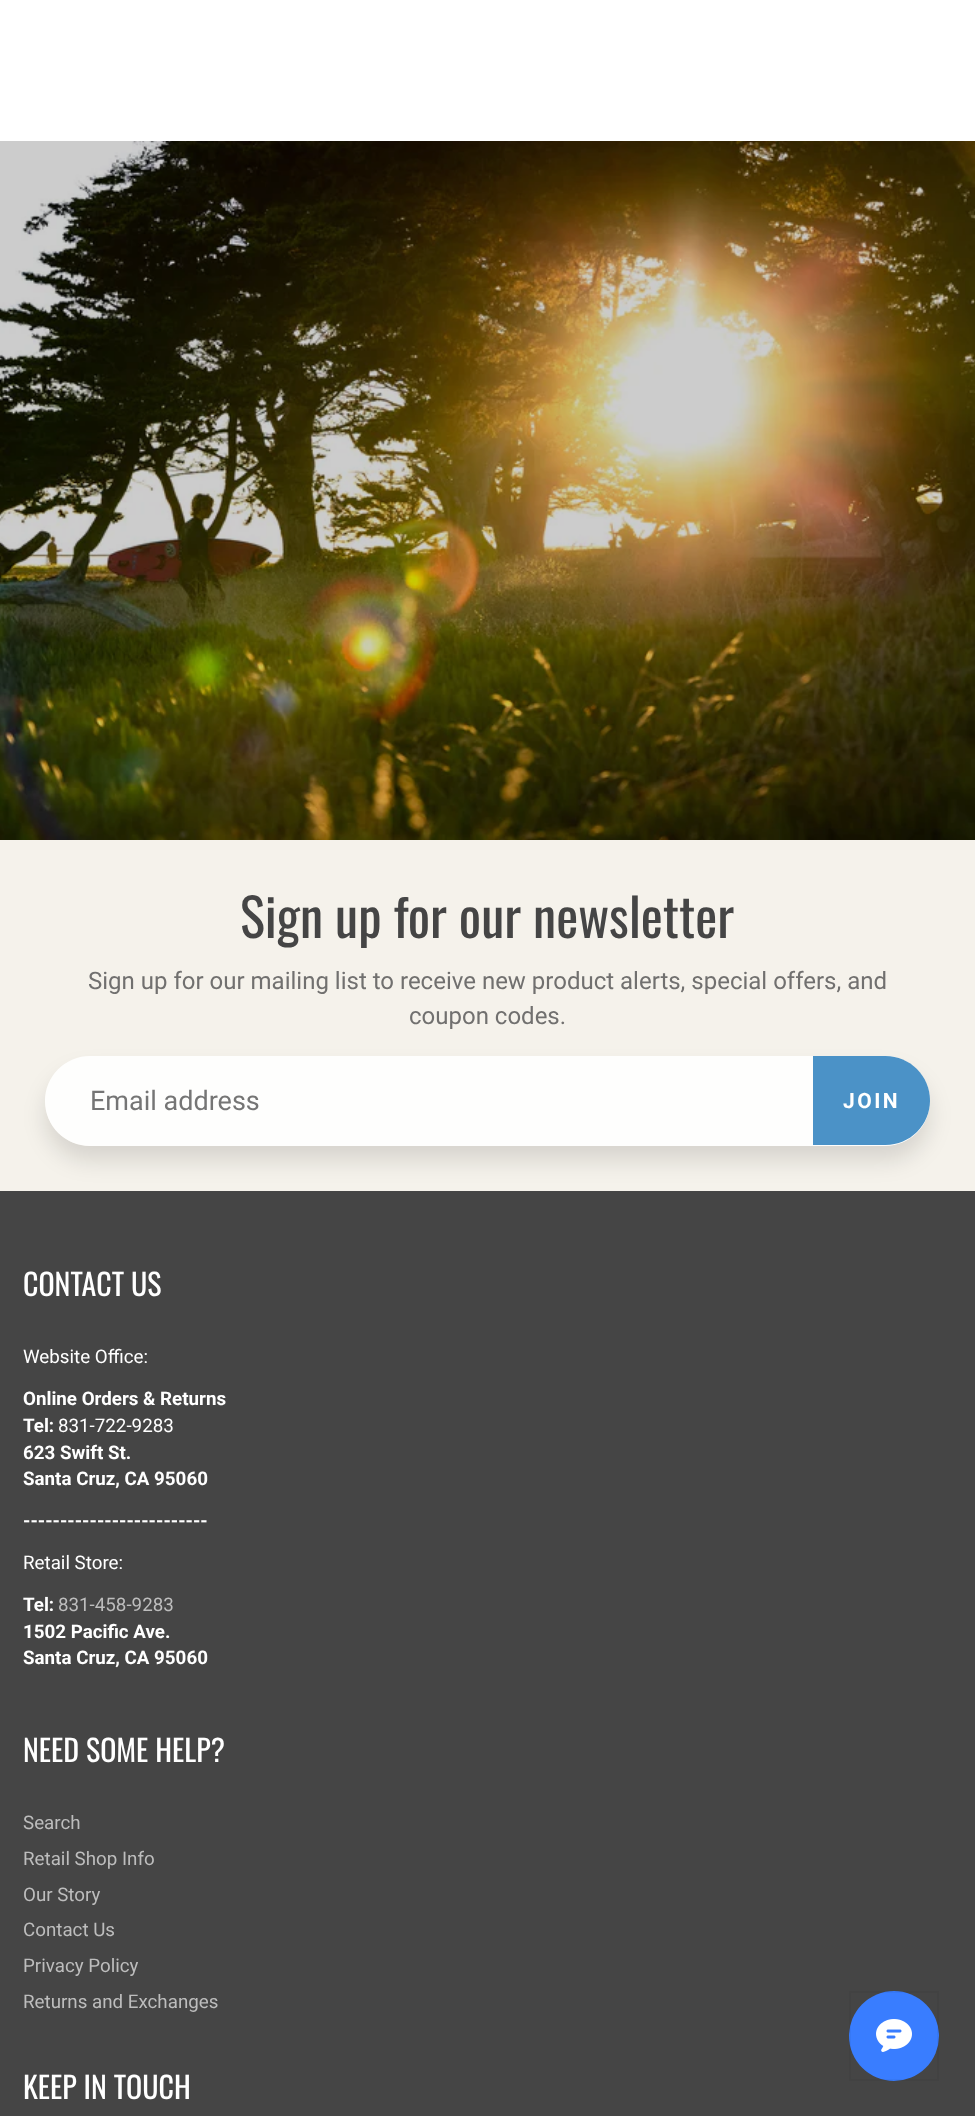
<svg xmlns="http://www.w3.org/2000/svg" width="975" height="2116" viewBox="0 0 975 2116">
  <defs>
    <clipPath id="clip1"><path d="M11 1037H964V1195H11ZM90 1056H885C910 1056 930 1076 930 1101C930 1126 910 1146 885 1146H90C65 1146 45 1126 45 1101C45 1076 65 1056 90 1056Z" clip-rule="evenodd"/></clipPath>
    <filter id="blur1" x="-50%" y="-200%" width="200%" height="500%"><feGaussianBlur stdDeviation="11"/></filter>
  </defs>
  <rect width="100%" height="100%" fill="#ffffff"/>
  <rect x="0" y="840" width="975" height="351" fill="#f5f2eb"/>
  <image x="0" y="141" width="975" height="699" href="img1.png"/>
  <text x="240" y="938" font-family="Oswald" font-size="52.5" fill="#454545">Sign up for our newsletter</text>
  <text x="88" y="989" font-family="Roboto" font-size="24" fill="#71706f">Sign up for our mailing list to receive new product alerts, special offers, and</text>
  <text x="409" y="1024" font-family="Roboto" font-size="24" fill="#71706f">coupon codes.</text>
  <rect x="0" y="1191" width="975" height="925" fill="#454545"/>
  <g clip-path="url(#clip1)">
    <rect x="45" y="1071" width="885" height="90" rx="45" fill="#000000" fill-opacity="0.12" filter="url(#blur1)"/>
  </g>
  <rect x="45" y="1056" width="885" height="90" rx="45" fill="#ffffff" fill-opacity="0.9"/>
  <text x="90" y="1110" font-family="Roboto" font-size="27" fill="#757575">Email address</text>
  <path d="M813 1056H885.5C910 1056 930 1076 930 1100.5C930 1125 910 1145 885.5 1145H813Z" fill="#4b92c7"/>
  <text x="843" y="1108" font-family="Roboto" font-size="21" font-weight="bold" letter-spacing="2.5" fill="#ffffff">JOIN</text>
  <text x="23" y="1296" font-family="Oswald" font-size="30" fill="#ffffff">CONTACT US</text>
  <text x="23" y="1363" font-family="Roboto" font-size="18.75" fill="#ffffff">Website Office:</text>
  <text x="23" y="1405" font-family="Roboto" font-size="18.75" font-weight="bold" fill="#ffffff">Online Orders &amp; Returns</text>
  <text x="23" y="1432" font-family="Roboto" font-size="18.75" font-weight="bold" fill="#ffffff">Tel:</text>
  <text x="58" y="1432" font-family="Roboto" font-size="18.75" fill="#ffffff">831-722-9283</text>
  <text x="23" y="1459" font-family="Roboto" font-size="18.75" font-weight="bold" fill="#ffffff">623 Swift St.</text>
  <text x="23" y="1485" font-family="Roboto" font-size="18.75" font-weight="bold" fill="#ffffff">Santa Cruz, CA 95060</text>
  <text x="23" y="1527" font-family="Roboto" font-size="18.75" font-weight="bold" fill="#ffffff">-------------------------</text>
  <text x="23" y="1569" font-family="Roboto" font-size="18.75" fill="#ffffff">Retail Store:</text>
  <text x="23" y="1611" font-family="Roboto" font-size="18.75" font-weight="bold" fill="#ffffff">Tel:</text>
  <text x="58" y="1611" font-family="Roboto" font-size="18.75" fill="#bdbdbd">831-458-9283</text>
  <text x="23" y="1638" font-family="Roboto" font-size="18.75" font-weight="bold" fill="#ffffff">1502 Pacific Ave.</text>
  <text x="23" y="1664" font-family="Roboto" font-size="18.75" font-weight="bold" fill="#ffffff">Santa Cruz, CA 95060</text>
  <text x="23" y="1762" font-family="Oswald" font-size="30" fill="#ffffff">NEED SOME HELP?</text>
  <text x="23" y="1829" font-family="Roboto" font-size="18.75" fill="#bdbdbd">Search</text>
  <text x="23" y="1865" font-family="Roboto" font-size="18.75" fill="#bdbdbd">Retail Shop Info</text>
  <text x="23" y="1901" font-family="Roboto" font-size="18.75" fill="#bdbdbd">Our Story</text>
  <text x="23" y="1936" font-family="Roboto" font-size="18.75" fill="#bdbdbd">Contact Us</text>
  <text x="23" y="1972" font-family="Roboto" font-size="18.75" fill="#bdbdbd">Privacy Policy</text>
  <text x="23" y="2008" font-family="Roboto" font-size="18.75" fill="#bdbdbd">Returns and Exchanges</text>
  <text x="23" y="2099" font-family="Oswald" font-size="30" fill="#ffffff">KEEP IN TOUCH</text>
  <circle cx="894" cy="2036" r="45" fill="#397dff"/>
  <rect x="850" y="1992" width="88" height="88" fill="none" stroke="#000000" stroke-opacity="0.04" stroke-width="2"/>
  <image x="876" y="2019" width="36" height="33" href="img2.png"/>
</svg>
